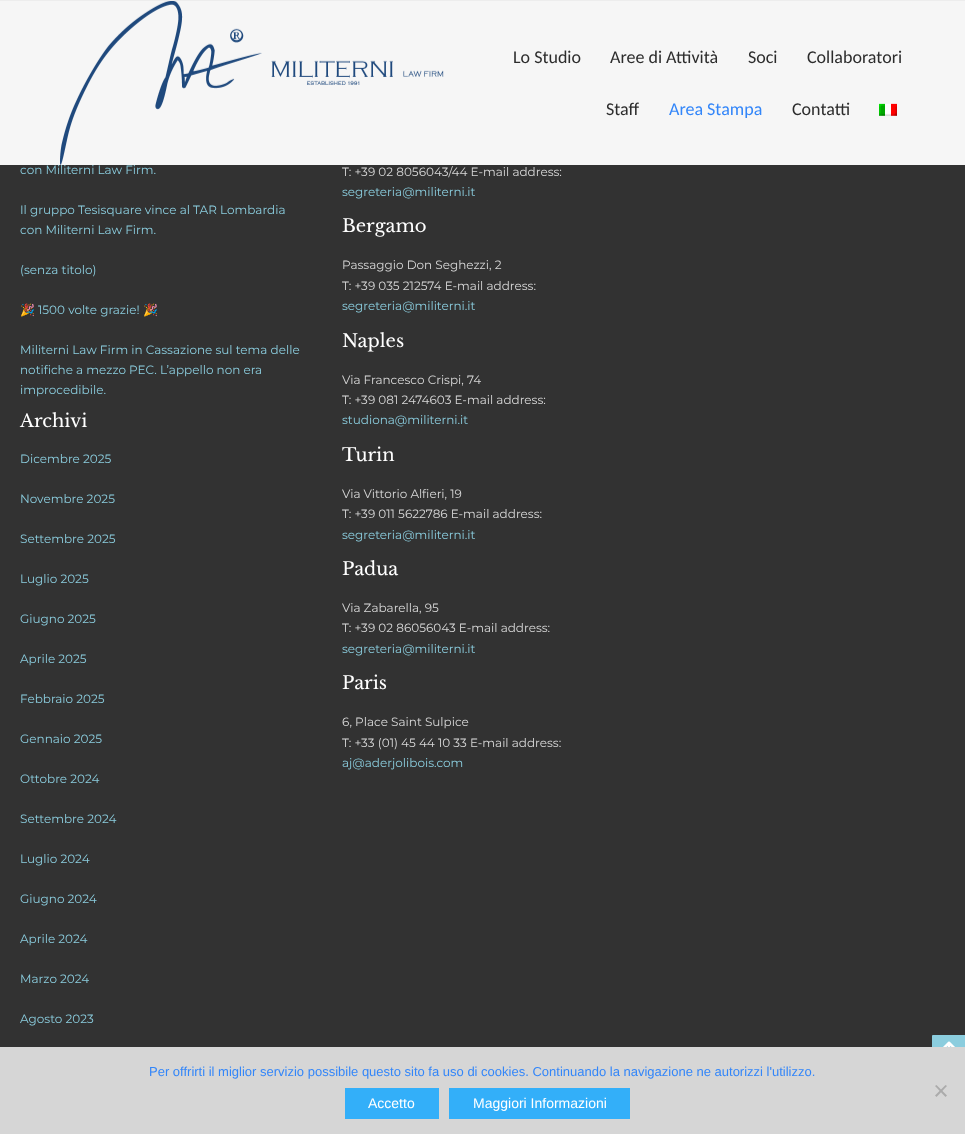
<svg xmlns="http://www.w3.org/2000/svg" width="965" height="1134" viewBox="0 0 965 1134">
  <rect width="100%" height="100%" fill="#323232"/>
  <rect x="0" y="1" width="965" height="164" fill="#f6f6f6"/>
  <rect x="0" y="0" width="965" height="1" fill="#ededed"/>
  <image x="60" y="1" width="384" height="164" href="img1.png"/>
  <text x="513" y="63" font-family="Carlito" font-size="18" fill="#2c2c2c">Lo Studio</text>
  <text x="610" y="63" font-family="Carlito" font-size="18" fill="#2c2c2c">Aree di Attività</text>
  <text x="748" y="63" font-family="Carlito" font-size="18" fill="#2c2c2c">Soci</text>
  <text x="807" y="63" font-family="Carlito" font-size="18" fill="#2c2c2c">Collaboratori</text>
  <text x="606" y="115" font-family="Carlito" font-size="18" fill="#2c2c2c">Staff</text>
  <text x="669" y="115" font-family="Carlito" font-size="18" fill="#3386f9">Area Stampa</text>
  <text x="792" y="115" font-family="Carlito" font-size="18" fill="#2c2c2c">Contatti</text>
  <image x="879" y="103" width="18" height="13" href="img2.png"/>
  <text x="20" y="174" font-family="Montserrat" font-size="12" fill="#8bcdde">con Militerni Law Firm.</text>
  <text x="20" y="214" font-family="Montserrat" font-size="12" fill="#8bcdde">Il gruppo Tesisquare vince al TAR Lombardia</text>
  <text x="20" y="234" font-family="Montserrat" font-size="12" fill="#8bcdde">con Militerni Law Firm.</text>
  <text x="20" y="274" font-family="Montserrat" font-size="12" fill="#8bcdde">(senza titolo)</text>
  <text x="20" y="314" font-family="Noto Color Emoji" font-size="12" fill="#8bcdde">🎉</text>
  <text x="38" y="314" font-family="Montserrat" font-size="12" fill="#8bcdde">1500 volte grazie!</text>
  <text x="143" y="314" font-family="Noto Color Emoji" font-size="12" fill="#8bcdde">🎉</text>
  <text x="20" y="354" font-family="Montserrat" font-size="12" fill="#8bcdde">Militerni Law Firm in Cassazione sul tema delle</text>
  <text x="20" y="374" font-family="Montserrat" font-size="12" fill="#8bcdde">notifiche a mezzo PEC. L’appello non era</text>
  <text x="20" y="394" font-family="Montserrat" font-size="12" fill="#8bcdde">improcedibile.</text>
  <text x="20" y="427" font-family="Libre Baskerville" font-size="18" fill="#ffffff">Archivi</text>
  <text x="20" y="463" font-family="Montserrat" font-size="12" fill="#8bcdde">Dicembre 2025</text>
  <text x="20" y="503" font-family="Montserrat" font-size="12" fill="#8bcdde">Novembre 2025</text>
  <text x="20" y="543" font-family="Montserrat" font-size="12" fill="#8bcdde">Settembre 2025</text>
  <text x="20" y="583" font-family="Montserrat" font-size="12" fill="#8bcdde">Luglio 2025</text>
  <text x="20" y="623" font-family="Montserrat" font-size="12" fill="#8bcdde">Giugno 2025</text>
  <text x="20" y="663" font-family="Montserrat" font-size="12" fill="#8bcdde">Aprile 2025</text>
  <text x="20" y="703" font-family="Montserrat" font-size="12" fill="#8bcdde">Febbraio 2025</text>
  <text x="20" y="743" font-family="Montserrat" font-size="12" fill="#8bcdde">Gennaio 2025</text>
  <text x="20" y="783" font-family="Montserrat" font-size="12" fill="#8bcdde">Ottobre 2024</text>
  <text x="20" y="823" font-family="Montserrat" font-size="12" fill="#8bcdde">Settembre 2024</text>
  <text x="20" y="863" font-family="Montserrat" font-size="12" fill="#8bcdde">Luglio 2024</text>
  <text x="20" y="903" font-family="Montserrat" font-size="12" fill="#8bcdde">Giugno 2024</text>
  <text x="20" y="943" font-family="Montserrat" font-size="12" fill="#8bcdde">Aprile 2024</text>
  <text x="20" y="983" font-family="Montserrat" font-size="12" fill="#8bcdde">Marzo 2024</text>
  <text x="20" y="1023" font-family="Montserrat" font-size="12" fill="#8bcdde">Agosto 2023</text>
  <text x="342" y="176" font-family="Montserrat" font-size="12" fill="#d8d8d8">T: +39 02 8056043/44 E-mail address:</text>
  <text x="342" y="196" font-family="Montserrat" font-size="12" fill="#8bcdde">segreteria@militerni.it</text>
  <text x="342" y="232" font-family="Libre Baskerville" font-size="18" fill="#ffffff">Bergamo</text>
  <text x="342" y="269" font-family="Montserrat" font-size="12" fill="#d8d8d8">Passaggio Don Seghezzi, 2</text>
  <text x="342" y="290" font-family="Montserrat" font-size="12" fill="#d8d8d8">T: +39 035 212574 E-mail address:</text>
  <text x="342" y="310" font-family="Montserrat" font-size="12" fill="#8bcdde">segreteria@militerni.it</text>
  <text x="342" y="347" font-family="Libre Baskerville" font-size="18" fill="#ffffff">Naples</text>
  <text x="342" y="384" font-family="Montserrat" font-size="12" fill="#d8d8d8">Via Francesco Crispi, 74</text>
  <text x="342" y="404" font-family="Montserrat" font-size="12" fill="#d8d8d8">T: +39 081 2474603 E-mail address:</text>
  <text x="342" y="424" font-family="Montserrat" font-size="12" fill="#8bcdde">studiona@militerni.it</text>
  <text x="342" y="461" font-family="Libre Baskerville" font-size="18" fill="#ffffff">Turin</text>
  <text x="342" y="498" font-family="Montserrat" font-size="12" fill="#d8d8d8">Via Vittorio Alfieri, 19</text>
  <text x="342" y="518" font-family="Montserrat" font-size="12" fill="#d8d8d8">T: +39 011 5622786 E-mail address:</text>
  <text x="342" y="539" font-family="Montserrat" font-size="12" fill="#8bcdde">segreteria@militerni.it</text>
  <text x="342" y="575" font-family="Libre Baskerville" font-size="18" fill="#ffffff">Padua</text>
  <text x="342" y="612" font-family="Montserrat" font-size="12" fill="#d8d8d8">Via Zabarella, 95</text>
  <text x="342" y="632" font-family="Montserrat" font-size="12" fill="#d8d8d8">T: +39 02 86056043 E-mail address:</text>
  <text x="342" y="653" font-family="Montserrat" font-size="12" fill="#8bcdde">segreteria@militerni.it</text>
  <text x="342" y="689" font-family="Libre Baskerville" font-size="18" fill="#ffffff">Paris</text>
  <text x="342" y="726" font-family="Montserrat" font-size="12" fill="#d8d8d8">6, Place Saint Sulpice</text>
  <text x="342" y="747" font-family="Montserrat" font-size="12" fill="#d8d8d8">T: +33 (01) 45 44 10 33 E-mail address:</text>
  <text x="342" y="767" font-family="Montserrat" font-size="12" fill="#8bcdde">aj@aderjolibois.com</text>
  <path d="M933 1035H965V1065H932V1036C932 1035.5 932.5 1035 933 1035Z" fill="#8bcdde"/>
  <image x="943" y="1041" width="12" height="6" href="img3.png"/>
  <rect x="0" y="1047" width="965" height="87" fill="#d6d6d6"/>
  <text x="149" y="1076" font-family="Liberation Sans" font-size="13" fill="#3386f9">Per offrirti il miglior servizio possibile questo sito fa uso di cookies. Continuando la navigazione ne autorizzi l'utilizzo.</text>
  <path d="M945.5 1085L947 1086L936.5 1097L935 1095.5Z" fill="#ababab"/>
  <path d="M935 1086L936.5 1085L947 1095.5L945.5 1097Z" fill="#ababab"/>
  <rect x="345" y="1088" width="94" height="31" fill="#33aff9"/>
  <text x="368" y="1108" font-family="Liberation Sans" font-size="14" fill="#ffffff">Accetto</text>
  <rect x="449" y="1088" width="181" height="31" fill="#33aff9"/>
  <text x="473" y="1108" font-family="Liberation Sans" font-size="14" fill="#ffffff">Maggiori Informazioni</text>
</svg>
